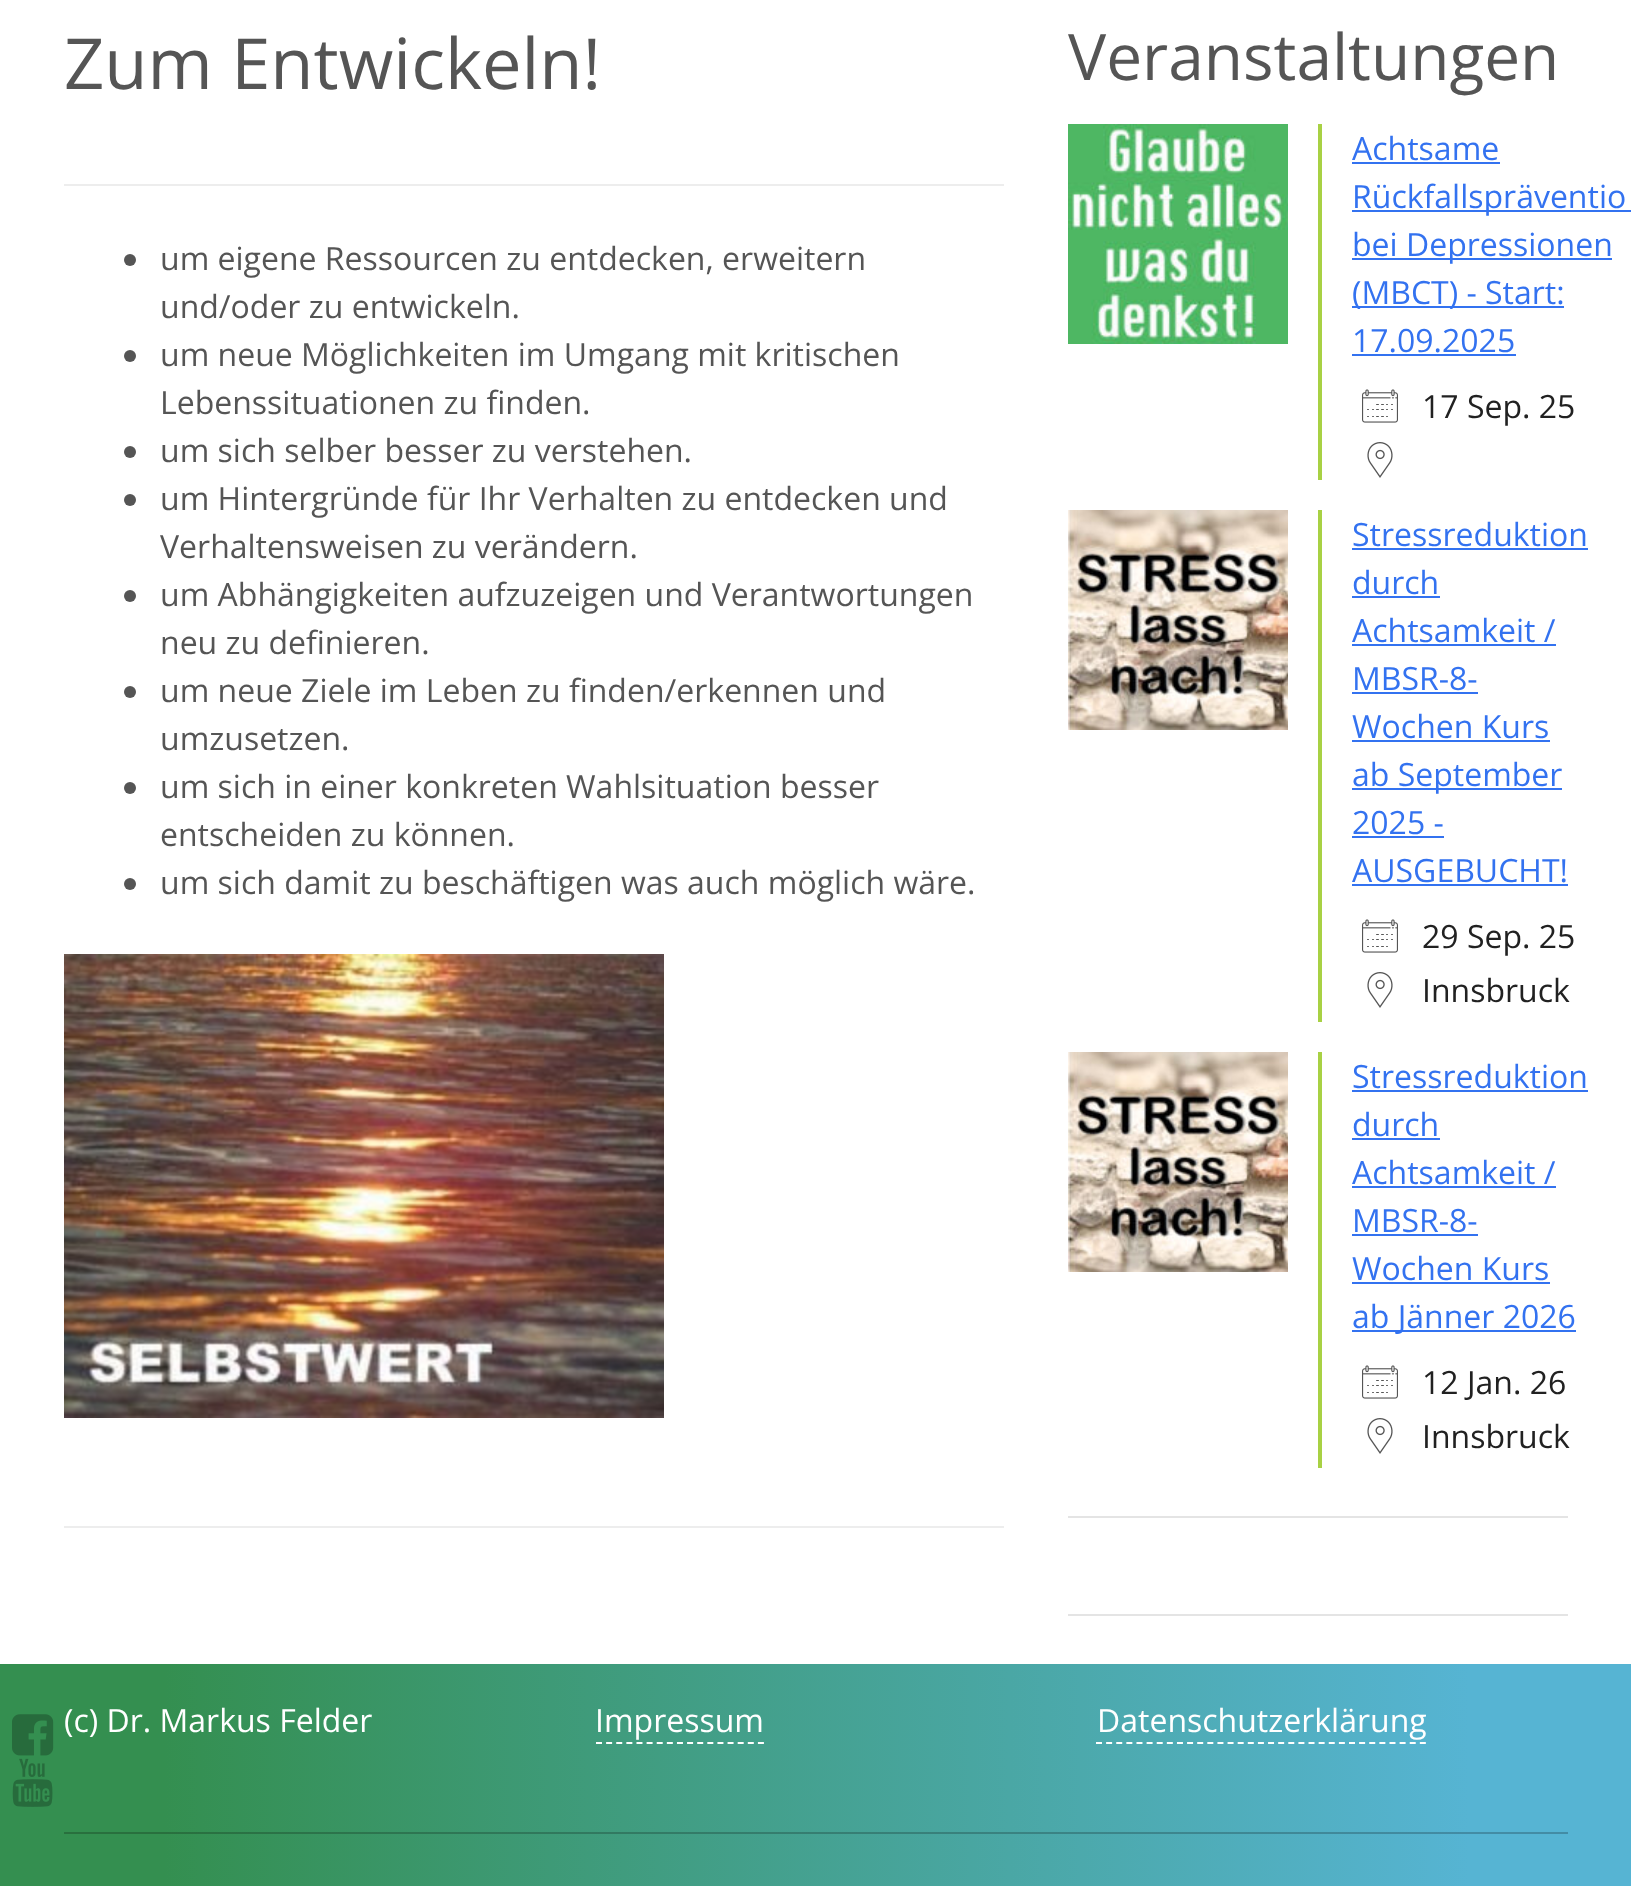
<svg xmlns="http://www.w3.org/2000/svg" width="1631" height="1886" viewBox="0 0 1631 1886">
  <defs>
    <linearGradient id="g1" gradientUnits="userSpaceOnUse" x1="0" y1="1785" x2="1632" y2="1785"><stop offset="0.1" stop-color="#348f50"/><stop offset="0.9" stop-color="#56b4d3"/></linearGradient>
    <linearGradient id="g2" gradientUnits="userSpaceOnUse" x1="0" y1="1785" x2="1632" y2="1785"><stop offset="0.1" stop-color="#29703e"/><stop offset="0.9" stop-color="#438ca5"/></linearGradient>
  </defs>
  <rect width="100%" height="100%" fill="#ffffff"/>
  <rect x="64" y="1526" width="940" height="2" fill="#ededed"/>
  <rect x="64" y="184" width="940" height="2" fill="#ededed"/>
  <text x="64" y="89" font-family="Open Sans" font-size="70.5" fill="#555555">Zum Entwickeln!</text>
  <circle cx="130" cy="260" r="6" fill="#555555"/>
  <text x="160" y="270" font-family="Open Sans" font-size="32" fill="#555555">um eigene Ressourcen zu entdecken, erweitern</text>
  <text x="160" y="318" font-family="Open Sans" font-size="32" fill="#555555">und/oder zu entwickeln.</text>
  <circle cx="130" cy="356" r="6" fill="#555555"/>
  <text x="160" y="366" font-family="Open Sans" font-size="32" fill="#555555">um neue Möglichkeiten im Umgang mit kritischen</text>
  <text x="160" y="414" font-family="Open Sans" font-size="32" fill="#555555">Lebenssituationen zu finden.</text>
  <circle cx="130" cy="452" r="6" fill="#555555"/>
  <text x="160" y="462" font-family="Open Sans" font-size="32" fill="#555555">um sich selber besser zu verstehen.</text>
  <circle cx="130" cy="500" r="6" fill="#555555"/>
  <text x="160" y="510" font-family="Open Sans" font-size="32" fill="#555555">um Hintergründe für Ihr Verhalten zu entdecken und</text>
  <text x="160" y="558" font-family="Open Sans" font-size="32" fill="#555555">Verhaltensweisen zu verändern.</text>
  <circle cx="130" cy="596" r="6" fill="#555555"/>
  <text x="160" y="606" font-family="Open Sans" font-size="32" fill="#555555">um Abhängigkeiten aufzuzeigen und Verantwortungen</text>
  <text x="160" y="654" font-family="Open Sans" font-size="32" fill="#555555">neu zu definieren.</text>
  <circle cx="130" cy="692" r="6" fill="#555555"/>
  <text x="160" y="702" font-family="Open Sans" font-size="32" fill="#555555">um neue Ziele im Leben zu finden/erkennen und</text>
  <text x="160" y="750" font-family="Open Sans" font-size="32" fill="#555555">umzusetzen.</text>
  <circle cx="130" cy="788" r="6" fill="#555555"/>
  <text x="160" y="798" font-family="Open Sans" font-size="32" fill="#555555">um sich in einer konkreten Wahlsituation besser</text>
  <text x="160" y="846" font-family="Open Sans" font-size="32" fill="#555555">entscheiden zu können.</text>
  <circle cx="130" cy="884" r="6" fill="#555555"/>
  <text x="160" y="894" font-family="Open Sans" font-size="32" fill="#555555">um sich damit zu beschäftigen was auch möglich wäre.</text>
  <image x="64" y="954" width="600" height="464" href="img1.png"/>
  <rect x="1068" y="1614" width="500" height="2" fill="#e4e4e4"/>
  <rect x="1068" y="1516" width="500" height="2" fill="#e4e4e4"/>
  <text x="1068" y="80" font-family="Open Sans" font-size="64" fill="#555555">Veranstaltungen</text>
  <image x="1068" y="124" width="220" height="220" href="img2.png"/>
  <rect x="1318" y="124" width="4" height="356" fill="#a8d144"/>
  <text x="1352" y="160" font-family="Open Sans" font-size="32" fill="#3372f0">Achtsame</text>
  <rect x="1352" y="162" width="148" height="2" fill="#3372f0"/>
  <rect x="1352" y="210" width="279" height="2" fill="#3372f0"/>
  <text x="1352" y="208" font-family="Open Sans" font-size="32" fill="#3372f0">Rückfallspräventio</text>
  <rect x="1352" y="258" width="260" height="2" fill="#3372f0"/>
  <text x="1352" y="256" font-family="Open Sans" font-size="32" fill="#3372f0">bei Depressionen</text>
  <rect x="1352" y="306" width="212" height="2" fill="#3372f0"/>
  <text x="1352" y="304" font-family="Open Sans" font-size="32" fill="#3372f0">(MBCT) - Start:</text>
  <text x="1352" y="352" font-family="Open Sans" font-size="32" fill="#3372f0">17.09.2025</text>
  <rect x="1352" y="354" width="164" height="2" fill="#3372f0"/>
  <image x="1362" y="389" width="36" height="34" href="img3.png"/>
  <text x="1422" y="418" font-family="Open Sans" font-size="32" fill="#212121">17 Sep. 25</text>
  <image x="1367" y="442" width="26" height="36" href="img4.png"/>
  <image x="1068" y="510" width="220" height="220" href="img5.png"/>
  <rect x="1318" y="510" width="4" height="512" fill="#a8d144"/>
  <text x="1352" y="546" font-family="Open Sans" font-size="32" fill="#3372f0">Stressreduktion</text>
  <rect x="1352" y="548" width="236" height="2" fill="#3372f0"/>
  <text x="1352" y="594" font-family="Open Sans" font-size="32" fill="#3372f0">durch</text>
  <rect x="1352" y="596" width="88" height="2" fill="#3372f0"/>
  <text x="1352" y="642" font-family="Open Sans" font-size="32" fill="#3372f0">Achtsamkeit /</text>
  <rect x="1352" y="644" width="204" height="2" fill="#3372f0"/>
  <text x="1352" y="690" font-family="Open Sans" font-size="32" fill="#3372f0">MBSR-8-</text>
  <rect x="1352" y="692" width="126" height="2" fill="#3372f0"/>
  <text x="1352" y="738" font-family="Open Sans" font-size="32" fill="#3372f0">Wochen Kurs</text>
  <rect x="1352" y="740" width="198" height="2" fill="#3372f0"/>
  <rect x="1352" y="788" width="210" height="2" fill="#3372f0"/>
  <text x="1352" y="786" font-family="Open Sans" font-size="32" fill="#3372f0">ab September</text>
  <text x="1352" y="834" font-family="Open Sans" font-size="32" fill="#3372f0">2025 -</text>
  <rect x="1352" y="836" width="92" height="2" fill="#3372f0"/>
  <text x="1352" y="882" font-family="Open Sans" font-size="32" fill="#3372f0">AUSGEBUCHT!</text>
  <rect x="1352" y="884" width="216" height="2" fill="#3372f0"/>
  <image x="1362" y="919" width="36" height="34" href="img3.png"/>
  <text x="1422" y="948" font-family="Open Sans" font-size="32" fill="#212121">29 Sep. 25</text>
  <image x="1367" y="972" width="26" height="36" href="img4.png"/>
  <text x="1422" y="1002" font-family="Open Sans" font-size="32" fill="#212121">Innsbruck</text>
  <image x="1068" y="1052" width="220" height="220" href="img5.png"/>
  <rect x="1318" y="1052" width="4" height="416" fill="#a8d144"/>
  <text x="1352" y="1088" font-family="Open Sans" font-size="32" fill="#3372f0">Stressreduktion</text>
  <rect x="1352" y="1090" width="236" height="2" fill="#3372f0"/>
  <text x="1352" y="1136" font-family="Open Sans" font-size="32" fill="#3372f0">durch</text>
  <rect x="1352" y="1138" width="88" height="2" fill="#3372f0"/>
  <text x="1352" y="1184" font-family="Open Sans" font-size="32" fill="#3372f0">Achtsamkeit /</text>
  <rect x="1352" y="1186" width="204" height="2" fill="#3372f0"/>
  <text x="1352" y="1232" font-family="Open Sans" font-size="32" fill="#3372f0">MBSR-8-</text>
  <rect x="1352" y="1234" width="126" height="2" fill="#3372f0"/>
  <text x="1352" y="1280" font-family="Open Sans" font-size="32" fill="#3372f0">Wochen Kurs</text>
  <rect x="1352" y="1282" width="198" height="2" fill="#3372f0"/>
  <rect x="1352" y="1330" width="224" height="2" fill="#3372f0"/>
  <text x="1352" y="1328" font-family="Open Sans" font-size="32" fill="#3372f0">ab Jänner 2026</text>
  <image x="1362" y="1365" width="36" height="34" href="img3.png"/>
  <text x="1422" y="1394" font-family="Open Sans" font-size="32" fill="#212121">12 Jan. 26</text>
  <image x="1367" y="1418" width="26" height="36" href="img4.png"/>
  <text x="1422" y="1448" font-family="Open Sans" font-size="32" fill="#212121">Innsbruck</text>
  <rect x="0" y="1664" width="1631" height="222" fill="url(#g1)"/>
  <rect x="64" y="1832" width="1504" height="2" fill="url(#g2)"/>
  <text x="64" y="1732" font-family="Open Sans" font-size="32" fill="#ffffff">(c) Dr. Markus Felder</text>
  <text x="595" y="1732" font-family="Open Sans" font-size="32" fill="#ffffff">Impressum</text>
  <path d="M596 1743H764" fill="none" stroke="#ffffff" stroke-width="2" stroke-dasharray="6 4.12"/>
  <text x="1097" y="1732" font-family="Open Sans" font-size="32" fill="#ffffff">Datenschutzerklärung</text>
  <path d="M1096 1743H1426" fill="none" stroke="#ffffff" stroke-width="2" stroke-dasharray="6 4.12"/>
  <image x="12" y="1714" width="42" height="42" href="img6.png"/>
  <image x="12" y="1758" width="41" height="49" href="img7.png"/>
</svg>
